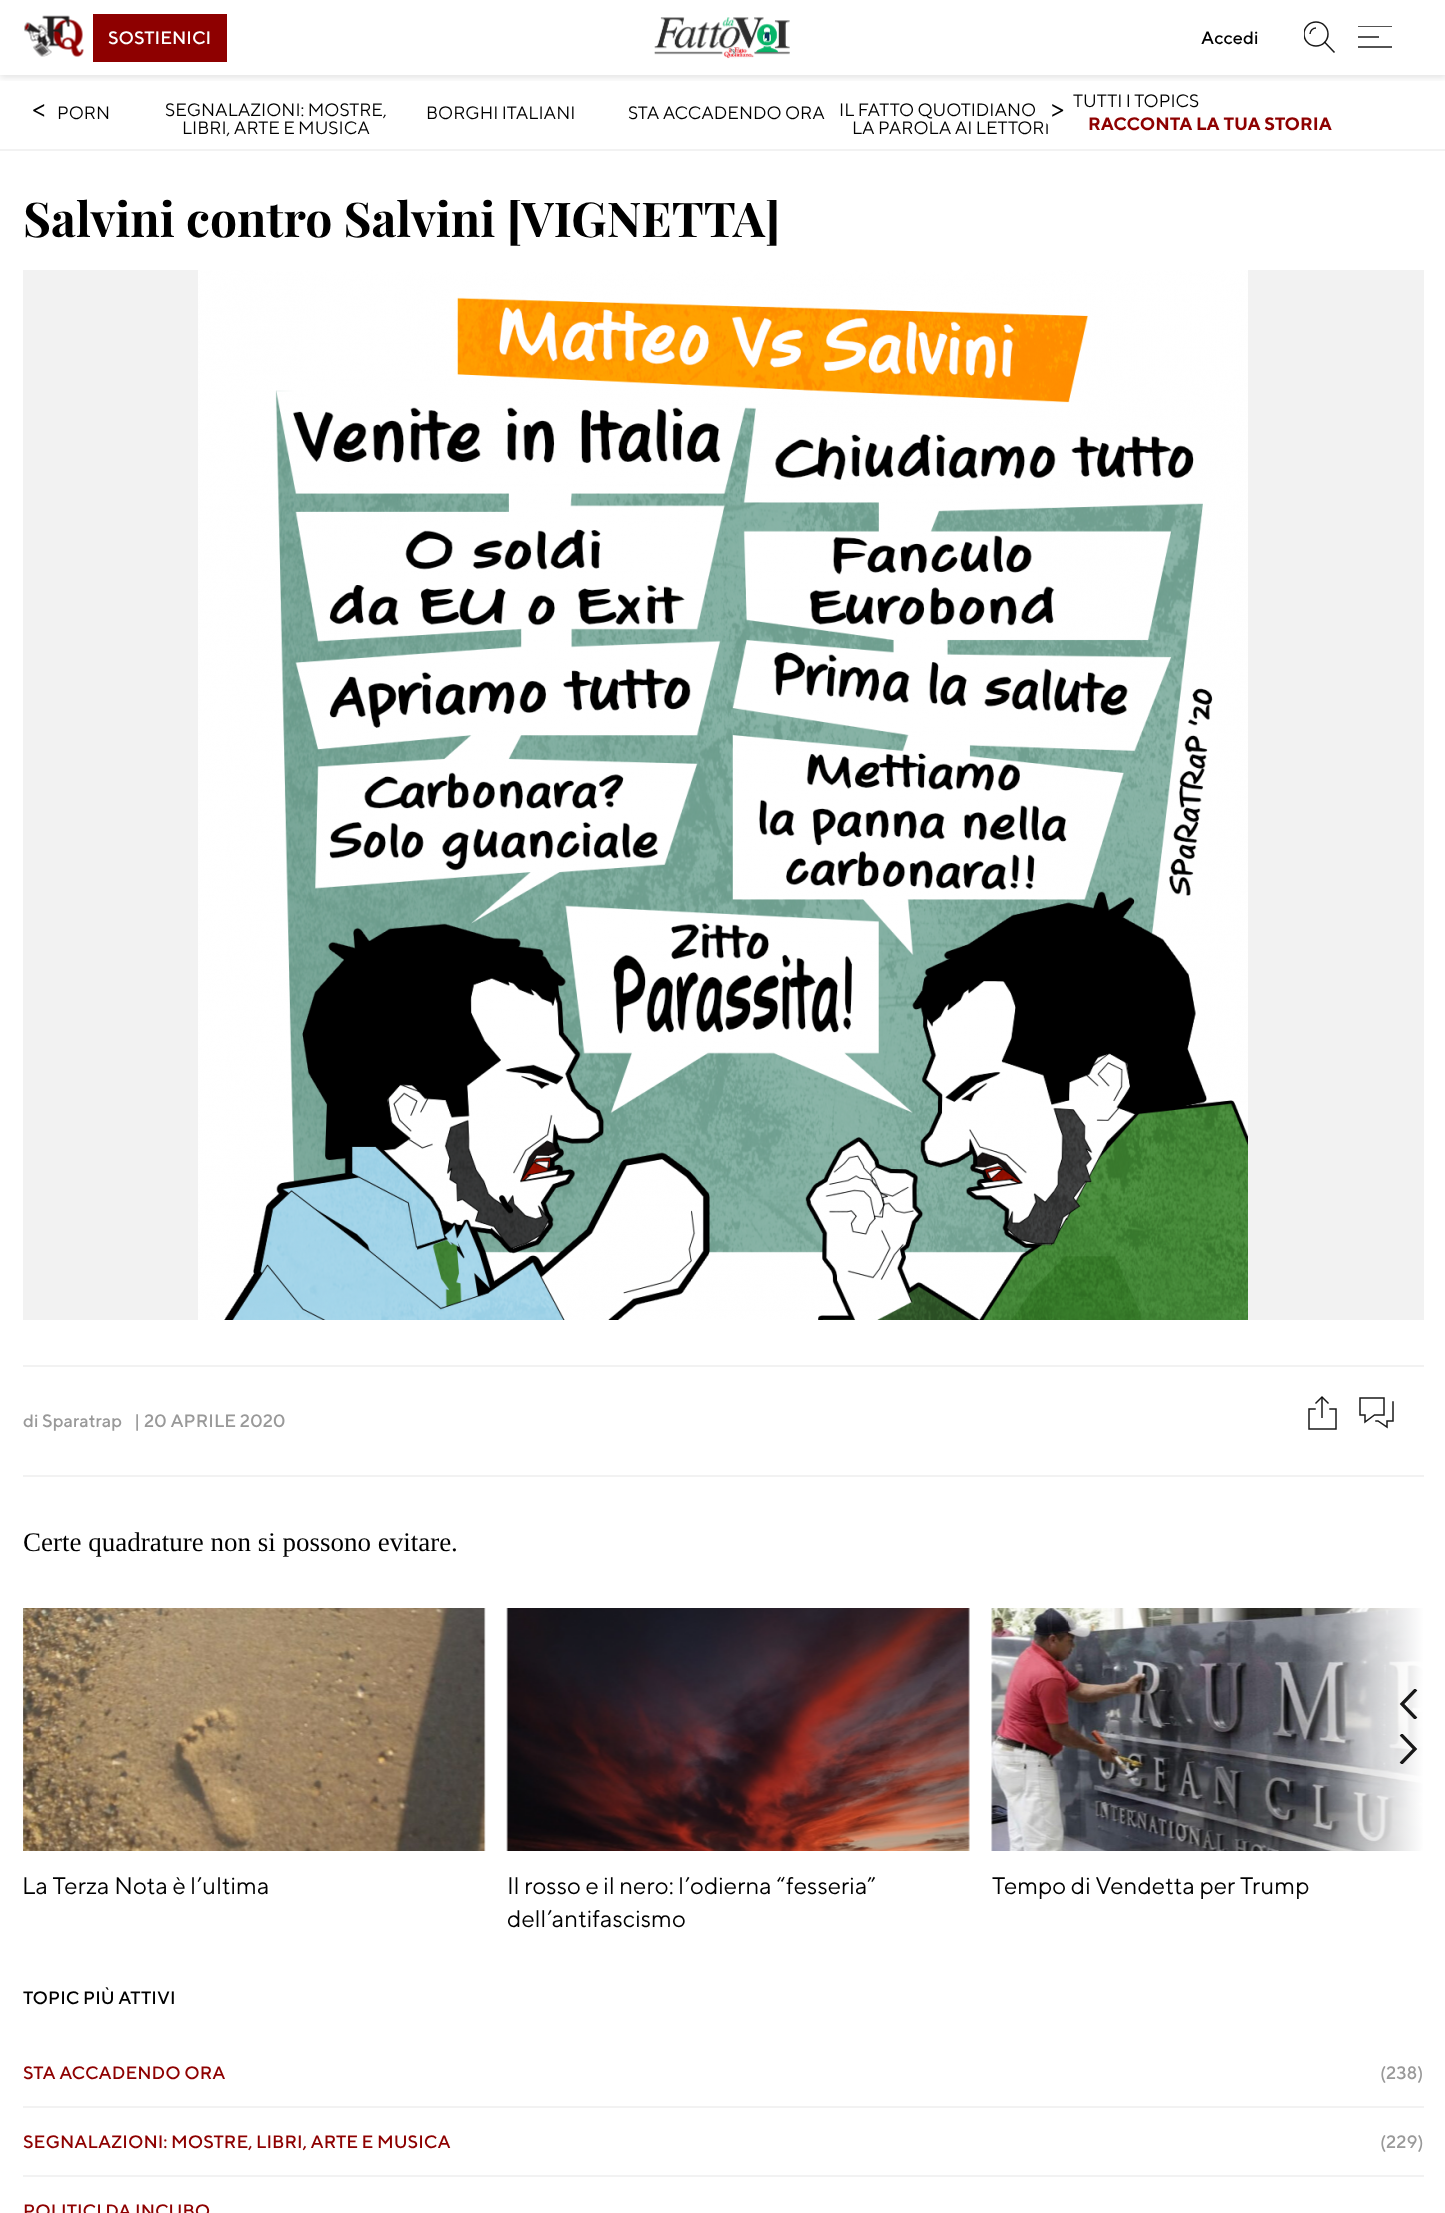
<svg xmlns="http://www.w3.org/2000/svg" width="1445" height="2213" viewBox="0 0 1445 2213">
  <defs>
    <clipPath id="clip1"><rect x="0" y="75" width="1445" height="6"/></clipPath>
    <filter id="blur1" x="-50%" y="-200%" width="200%" height="500%"><feGaussianBlur stdDeviation="3"/></filter>
    <clipPath id="clip2"><rect x="1304" y="21" width="31" height="32"/></clipPath>
    <linearGradient id="g1" gradientUnits="userSpaceOnUse" x1="1304" y1="1772" x2="1424" y2="1772"><stop offset="0" stop-color="#ffffff" stop-opacity="0"/><stop offset="0.29" stop-color="#ffffff" stop-opacity="0.34"/><stop offset="0.56" stop-color="#ffffff" stop-opacity="0.7"/><stop offset="1" stop-color="#ffffff"/></linearGradient>
    <clipPath id="clip3"><rect x="1394" y="1689" width="30" height="30"/></clipPath>
    <clipPath id="clip4"><rect x="1394" y="1734" width="30" height="30"/></clipPath>
  </defs>
  <rect width="100%" height="100%" fill="#ffffff"/>
  <g clip-path="url(#clip1)">
    <rect x="0" y="3" width="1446" height="75" fill="#000000" fill-opacity="0.1" filter="url(#blur1)"/>
  </g>
  <image x="24" y="15" width="60" height="42" href="img1.png"/>
  <rect x="93" y="14" width="134" height="48" fill="#8e0000"/>
  <text x="108" y="44" font-family="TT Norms" font-size="18" font-weight="500" fill="#ffffff">SOSTIENICI</text>
  <image x="654" y="17" width="136" height="42" href="img2.png"/>
  <text x="1201" y="44" font-family="TT Norms" font-size="18" font-weight="500" fill="#000000">Accedi</text>
  <path d="M1334 52L1325 42.5" fill="none" stroke="#1a1a1a" stroke-width="1.5" stroke-linecap="square"/>
  <g clip-path="url(#clip2)">
    <circle cx="1316" cy="34" r="12" fill="none" stroke="#000000" stroke-opacity="0.9" stroke-width="1.5"/>
  </g>
  <path d="M1310 34C1310 30.5 1313 28 1316 28" fill="none" stroke="#1a1a1a" stroke-width="1.5"/>
  <rect x="1358" y="26" width="34" height="1" fill="#535353"/>
  <rect x="1358" y="36" width="21" height="2" fill="#535353"/>
  <rect x="1358" y="46" width="34" height="2" fill="#535353"/>
  <rect x="0" y="149" width="1445" height="2" fill="#f2f2f2"/>
  <text x="57" y="119" font-family="TT Norms" font-size="18" fill="#000000">PORN</text>
  <text x="165" y="116" font-family="TT Norms" font-size="18" fill="#000000">SEGNALAZIONI: MOSTRE,</text>
  <text x="182" y="134" font-family="TT Norms" font-size="18" fill="#000000">LIBRI, ARTE E MUSICA</text>
  <text x="426" y="119" font-family="TT Norms" font-size="18" fill="#000000">BORGHI ITALIANI</text>
  <text x="628" y="119" font-family="TT Norms" font-size="18" fill="#000000">STA ACCADENDO ORA</text>
  <text x="839" y="116" font-family="TT Norms" font-size="18" fill="#000000">IL FATTO QUOTIDIANO</text>
  <text x="852" y="134" font-family="TT Norms" font-size="18" fill="#000000">LA PAROLA AI LETTORI</text>
  <text x="32" y="117" font-family="TT Norms" font-size="27" fill="#000000">&lt;</text>
  <text x="1073" y="107" font-family="TT Norms" font-size="18" fill="#000000">TUTTI I TOPICS</text>
  <rect x="1040" y="90" width="37" height="38" rx="18.5" fill="#ffffff"/>
  <text x="1051" y="117" font-family="TT Norms" font-size="27" fill="#000000">&gt;</text>
  <text x="1088" y="130" font-family="TT Norms" font-size="18" font-weight="bold" fill="#8e0000">RACCONTA LA TUA STORIA</text>
  <text x="23" y="237" font-family="Playfair Display" font-size="48" font-weight="bold" fill="#000000">Salvini contro Salvini [VIGNETTA]</text>
  <rect x="23" y="270" width="1401" height="1050" fill="#f2f2f2"/>
  <image x="198" y="270" width="1050" height="1050" href="img3.png"/>
  <rect x="23" y="1365" width="1401" height="2" fill="#f2f2f2"/>
  <rect x="23" y="1475" width="1401" height="2" fill="#f2f2f2"/>
  <text x="23" y="1427" font-family="TT Norms" font-size="18" font-weight="500" fill="#999999">di Sparatrap</text>
  <text x="134" y="1427" font-family="TT Norms" font-size="18" font-weight="500" fill="#999999">| 20 APRILE 2020</text>
  <rect x="1321" y="1397" width="2" height="21" fill="#535353"/>
  <path d="M1316 1403L1322 1397L1328 1403" fill="none" stroke="#000000" stroke-opacity="0.9" stroke-width="1.5" stroke-linecap="square"/>
  <path d="M1330 1409H1336V1429H1309V1409H1315" fill="none" stroke="#1a1a1a" stroke-width="1.5" stroke-linecap="square"/>
  <path d="M1393 1402V1421H1387V1427L1378 1421H1376M1384 1398H1360V1415H1365V1422L1374.5 1415H1384Z" fill="none" stroke="#1a1a1a" stroke-width="1.5" stroke-linecap="square"/>
  <text x="23" y="1551" font-family="Liberation Serif" font-size="27" fill="#000000">Certe quadrature non si possono evitare.</text>
  <image x="991" y="1608" width="432" height="243" href="img6.png"/>
  <text x="992" y="1894" font-family="TT Norms" font-size="24" fill="#000000">Tempo di Vendetta per Trump</text>
  <rect x="1306" y="1608" width="117" height="285" fill="url(#g1)"/>
  <g clip-path="url(#clip3)">
    <path d="M1415 1717.5L1402 1704L1415 1690.5" fill="none" stroke="#000000" stroke-opacity="0.9" stroke-width="3.3" stroke-linecap="square"/>
  </g>
  <g clip-path="url(#clip4)">
    <path d="M1402 1762.5L1415 1749L1402 1735.5" fill="none" stroke="#000000" stroke-opacity="0.9" stroke-width="3.3" stroke-linecap="square"/>
  </g>
  <image x="23" y="1608" width="463" height="243" href="img4.png"/>
  <text x="22" y="1894" font-family="TT Norms" font-size="24" fill="#000000">La Terza Nota è l’ultima</text>
  <image x="506" y="1608" width="464" height="243" href="img5.png"/>
  <text x="507" y="1894" font-family="TT Norms" font-size="24" fill="#000000">Il rosso e il nero: l’odierna “fesseria”</text>
  <text x="507" y="1927" font-family="TT Norms" font-size="24" fill="#000000">dell’antifascismo</text>
  <text x="23" y="2004" font-family="TT Norms" font-size="18" font-weight="500" fill="#000000">TOPIC PIÙ ATTIVI</text>
  <rect x="23" y="2106" width="1401" height="2" fill="#f2f2f2"/>
  <text x="23" y="2079" font-family="TT Norms" font-size="18" font-weight="500" fill="#8e0000">STA ACCADENDO ORA</text>
  <text x="1380" y="2079" font-family="TT Norms" font-size="18" font-weight="500" fill="#999999">(238)</text>
  <rect x="23" y="2175" width="1401" height="2" fill="#f2f2f2"/>
  <text x="23" y="2148" font-family="TT Norms" font-size="18" font-weight="500" fill="#8e0000">SEGNALAZIONI: MOSTRE, LIBRI, ARTE E MUSICA</text>
  <text x="1380" y="2148" font-family="TT Norms" font-size="18" font-weight="500" fill="#999999">(229)</text>
  <text x="23" y="2217" font-family="TT Norms" font-size="18" font-weight="500" fill="#8e0000">POLITICI DA INCUBO</text>
</svg>
